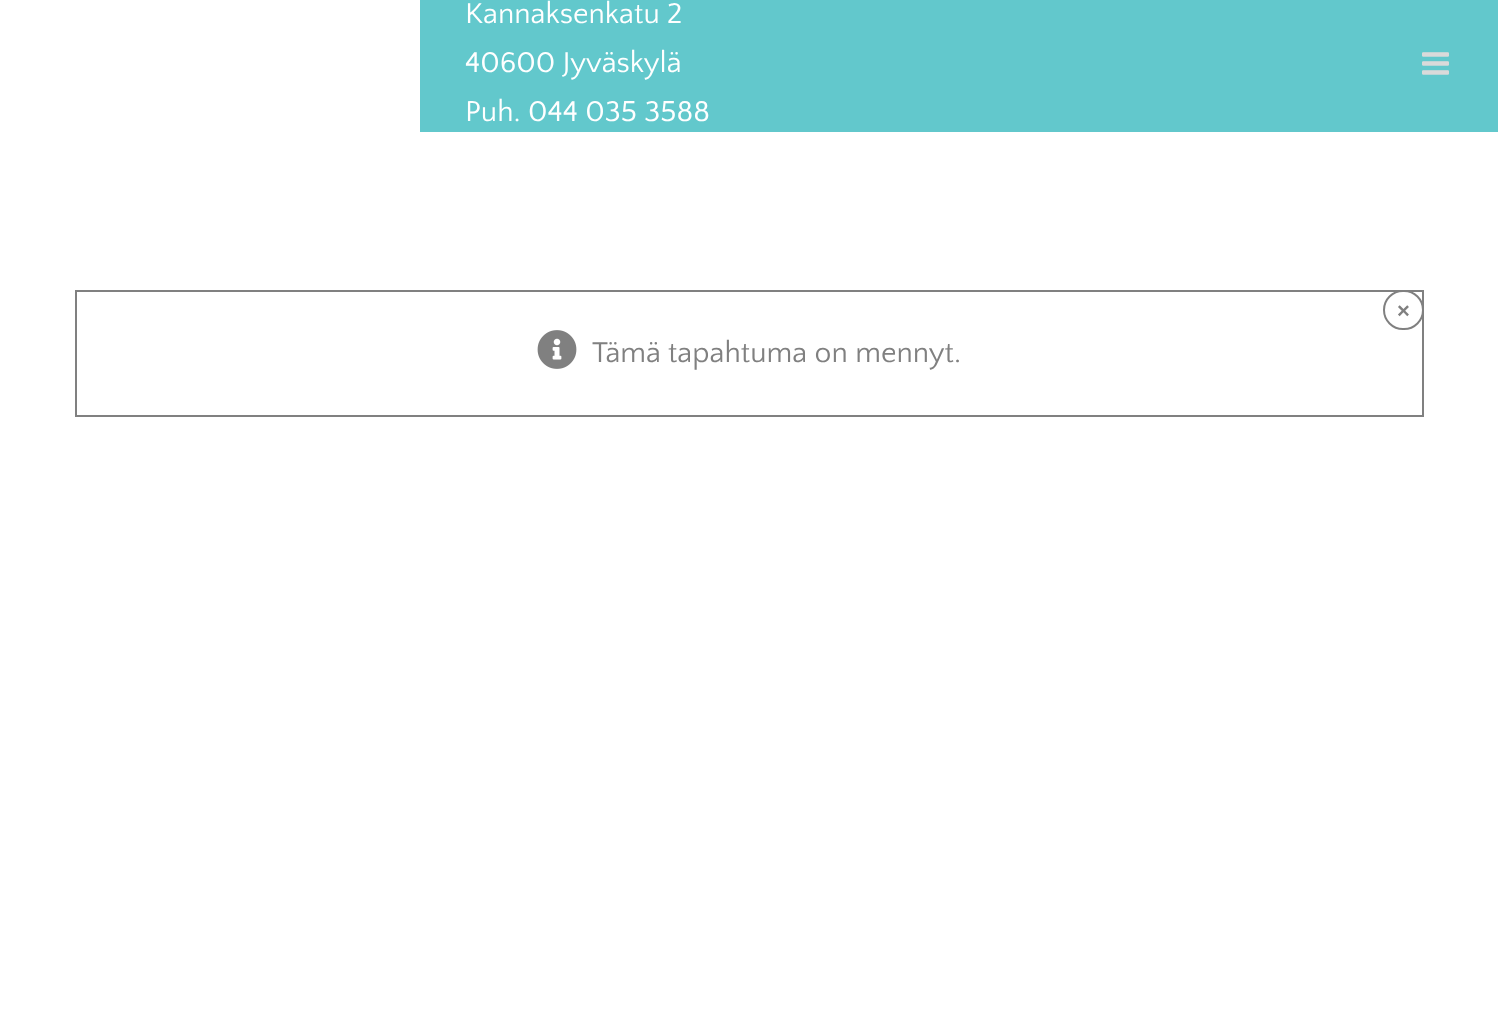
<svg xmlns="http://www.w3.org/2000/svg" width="1498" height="1029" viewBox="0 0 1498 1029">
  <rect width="100%" height="100%" fill="#ffffff"/>
  <rect x="420" y="0" width="1078" height="132" fill="#62c8cc"/>
  <text x="465" y="23" font-family="Quattrocento Sans" font-size="30" fill="#ffffff">Kannaksenkatu 2</text>
  <text x="465" y="72" font-family="Quattrocento Sans" font-size="30" fill="#ffffff">40600 Jyväskylä</text>
  <text x="465" y="121" font-family="Quattrocento Sans" font-size="30" fill="#ffffff">Puh. 044 035 3588</text>
  <image x="1422" y="52" width="27" height="23" href="img1.png"/>
  <rect x="76" y="291" width="1347" height="125" fill="none" stroke="#808080" stroke-width="2"/>
  <rect x="1384" y="291" width="39" height="38" rx="19" fill="none" stroke="#808080" stroke-width="2"/>
  <text x="1397" y="318" font-family="Liberation Sans" font-size="22" font-weight="bold" fill="#808080">×</text>
  <image x="537" y="330" width="40" height="39" href="img2.png"/>
  <text x="592" y="362" font-family="Quattrocento Sans" font-size="30" fill="#808080">Tämä tapahtuma on mennyt.</text>
</svg>
